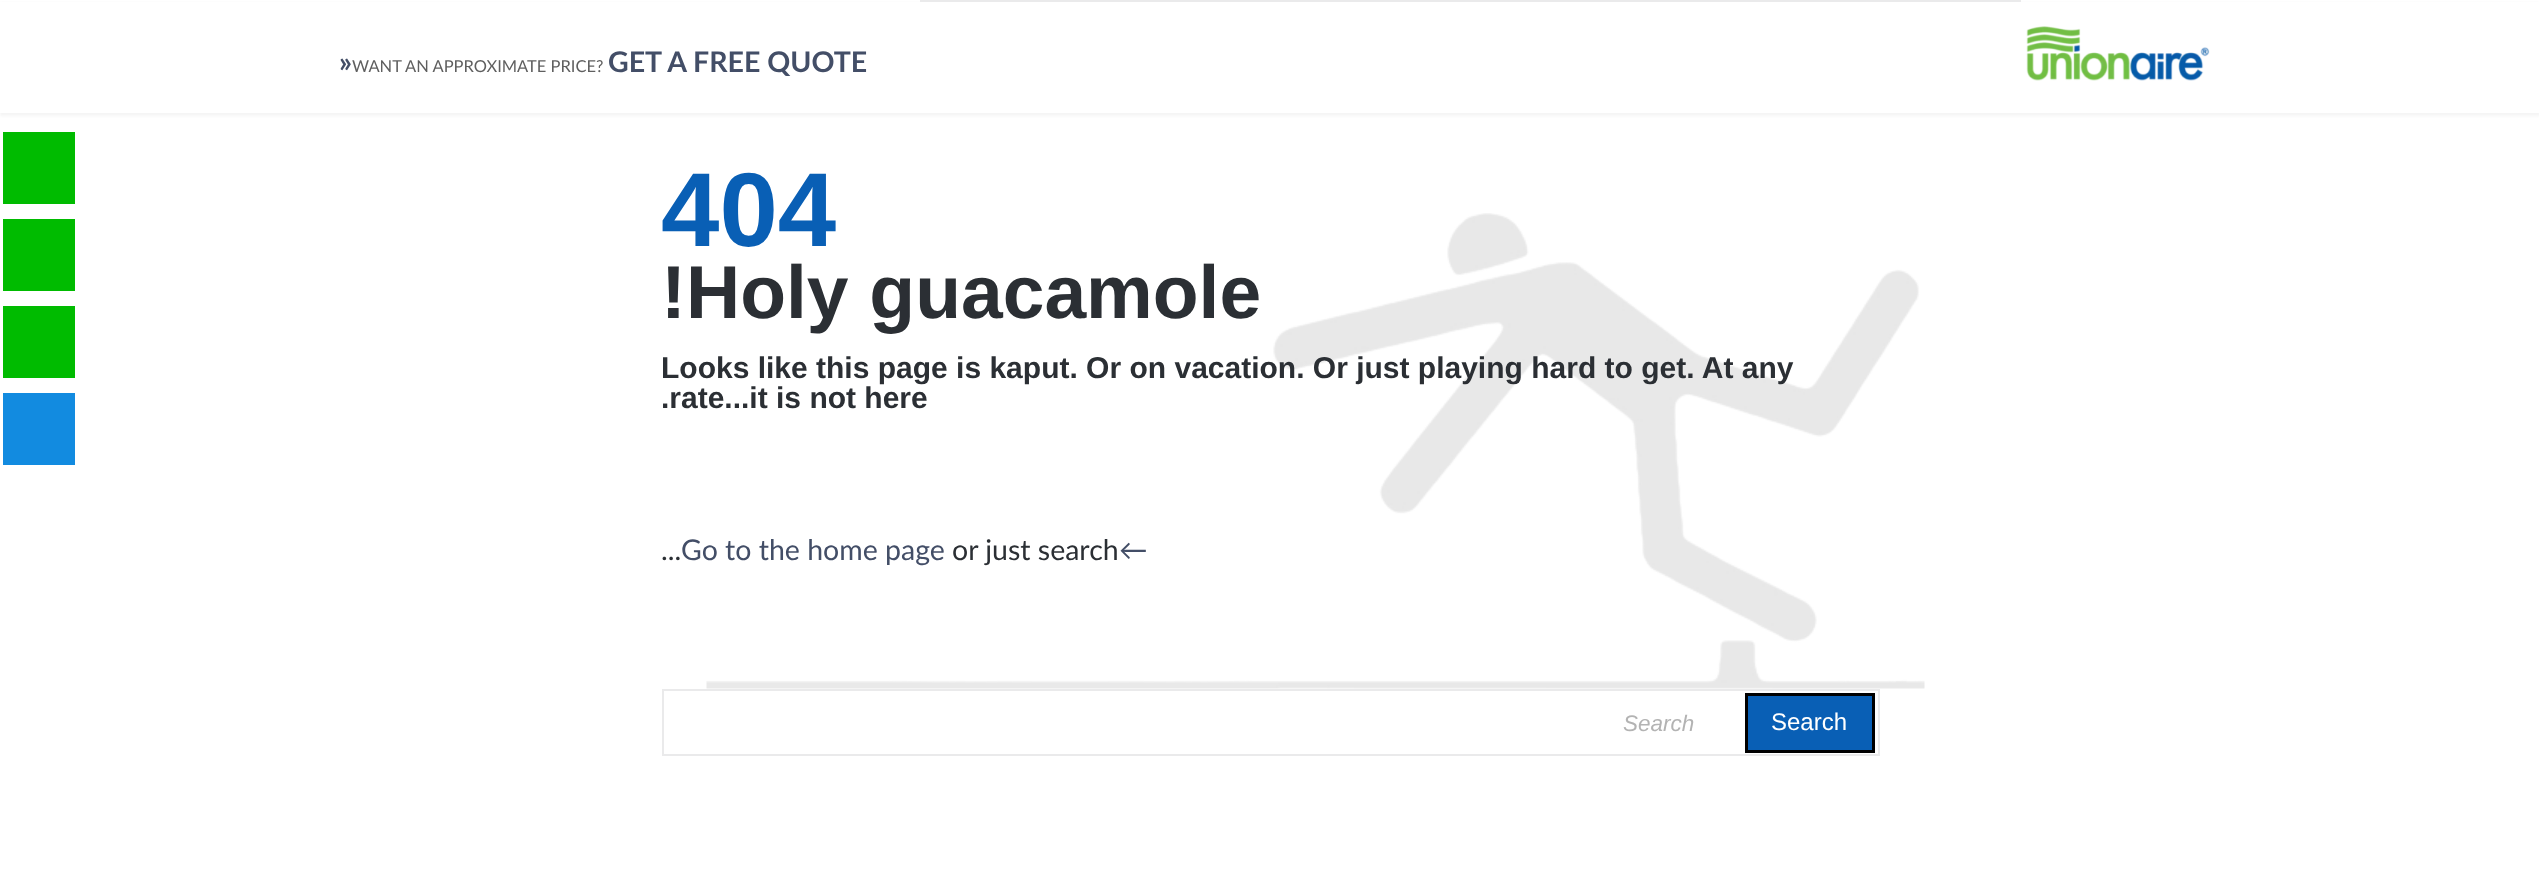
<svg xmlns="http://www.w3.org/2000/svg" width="2539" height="878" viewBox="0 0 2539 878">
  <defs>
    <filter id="blur1" x="-50%" y="-200%" width="200%" height="500%"><feGaussianBlur stdDeviation="1.5"/></filter>
  </defs>
  <rect width="100%" height="100%" fill="#ffffff"/>
  <rect x="3" y="132" width="72" height="72" fill="#00bb00"/>
  <rect x="3" y="219" width="72" height="72" fill="#00bb00"/>
  <rect x="3" y="306" width="72" height="72" fill="#00bb00"/>
  <rect x="3" y="393" width="72" height="72" fill="#128be0"/>
  <rect x="0" y="3" width="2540" height="113" fill="#000000" fill-opacity="0.04" filter="url(#blur1)"/>
  <rect x="0" y="2" width="2539" height="111" fill="#ffffff"/>
  <rect x="920" y="0" width="1101" height="2" fill="#eaeaeb"/>
  <text x="339" y="72" font-family="Lato" font-size="28.5" font-weight="bold" fill="#434e67">»</text>
  <text x="352" y="72" font-family="Lato" font-size="16.5" fill="#5f5f5f">WANT AN APPROXIMATE PRICE?</text>
  <text x="608" y="72" font-family="Lato" font-size="28.5" font-weight="bold" fill="#434e67">GET A FREE QUOTE</text>
  <image x="2026" y="26" width="184" height="55" href="img1.png"/>
  <image x="706" y="213" width="1219" height="476" href="img2.png"/>
  <text x="661" y="246" font-family="Liberation Sans" font-size="105" font-weight="bold" fill="#095fb5">404</text>
  <text x="661" y="318" font-family="Liberation Sans" font-size="75" font-weight="bold" fill="#2b2f34">!Holy guacamole</text>
  <text x="661" y="378" font-family="Liberation Sans" font-size="30" font-weight="bold" fill="#2b2f34">Looks like this page is kaput. Or on vacation. Or just playing hard to get. At any</text>
  <text x="661" y="408" font-family="Liberation Sans" font-size="30" font-weight="bold" fill="#2b2f34">.rate...it is not here</text>
  <text x="661" y="560" font-family="Lato" font-size="28.5" fill="#2b2f34">...</text>
  <text x="681" y="560" font-family="Lato" font-size="28.5" fill="#434e67">Go to the home page</text>
  <text x="952" y="560" font-family="Lato" font-size="28.5" fill="#2b2f34">or just search</text>
  <text x="1119" y="560" font-family="Lato" font-size="28.5" fill="#434e67">←</text>
  <rect x="663" y="690" width="1216" height="65" fill="none" stroke="#eaeaeb" stroke-width="2"/>
  <text x="1623" y="731" font-family="Liberation Sans" font-size="22.5" font-style="italic" fill="#b3b3b3">Search</text>
  <rect x="1746.5" y="694.5" width="127" height="57" fill="#095fb5" stroke="#000000" stroke-width="3"/>
  <text x="1771" y="730" font-family="Liberation Sans" font-size="24" fill="#ffffff">Search</text>
</svg>
